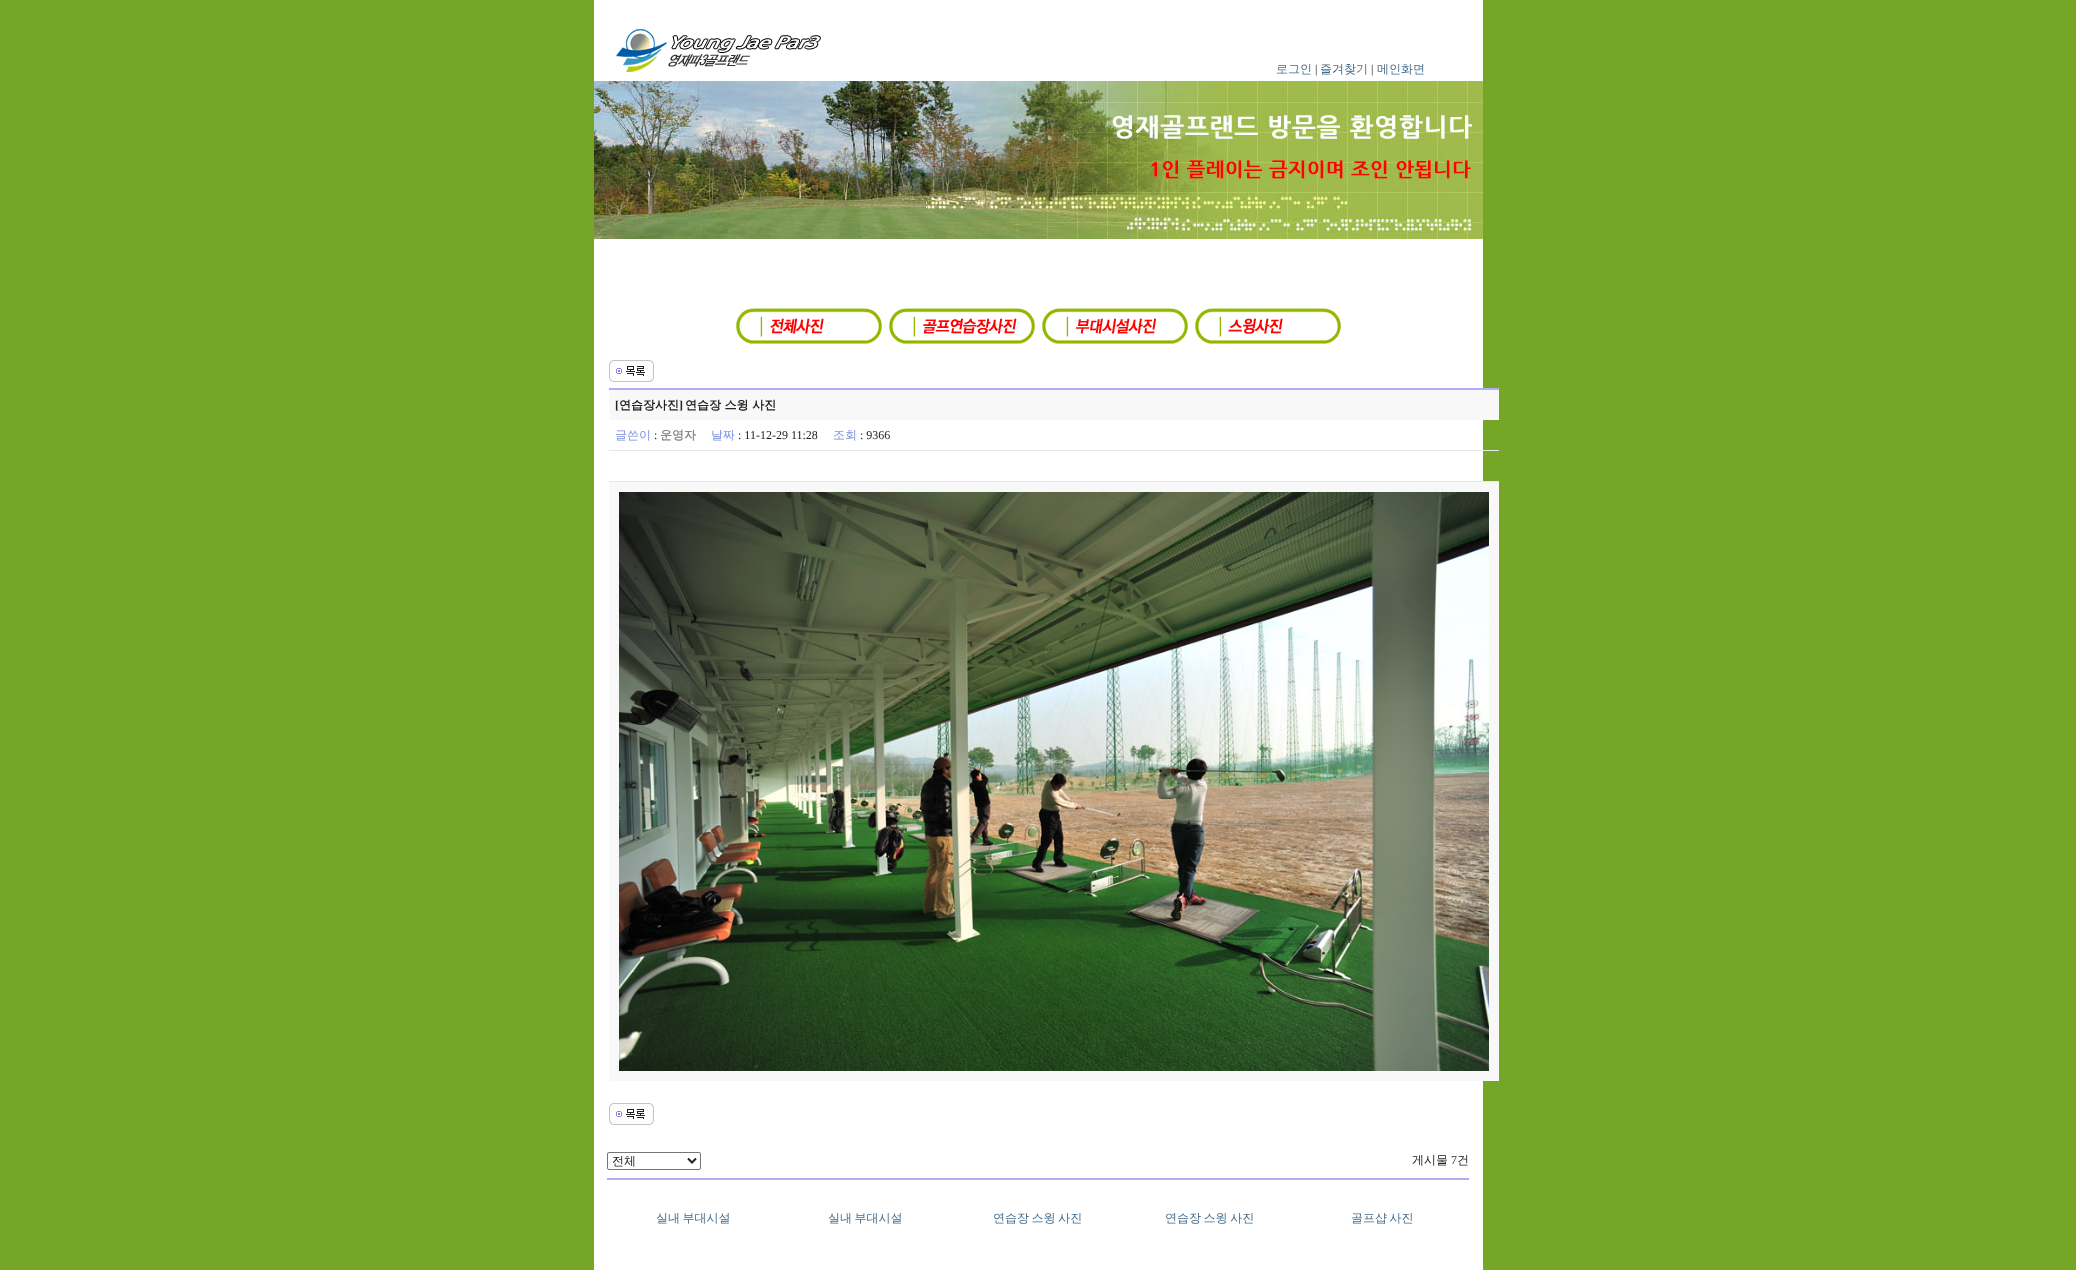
<svg xmlns="http://www.w3.org/2000/svg" width="2076" height="1270" viewBox="0 0 2076 1270">
  <rect width="100%" height="100%" fill="#75a625"/>
  <rect x="594" y="0" width="889" height="1270" fill="#ffffff"/>
  <image x="612" y="29" width="209" height="43" href="img1.png"/>
  <text x="1276" y="73" font-family="WenQuanYi Zen Hei" font-size="12" font-weight="500" fill="#466c8a">로그인</text>
  <text x="1315" y="73" font-family="Liberation Serif" font-size="12" fill="#222222">|</text>
  <text x="1320" y="73" font-family="WenQuanYi Zen Hei" font-size="12" font-weight="500" fill="#466c8a">즐겨찾기</text>
  <text x="1371" y="73" font-family="Liberation Serif" font-size="12" fill="#222222">|</text>
  <text x="1377" y="73" font-family="WenQuanYi Zen Hei" font-size="12" font-weight="500" fill="#466c8a">메인화면</text>
  <image x="594" y="81" width="889" height="158" href="img2.png"/>
  <image x="736" y="308" width="146" height="36" href="img3.png"/>
  <image x="889" y="308" width="146" height="36" href="img4.png"/>
  <image x="1042" y="308" width="146" height="36" href="img5.png"/>
  <image x="1195" y="308" width="146" height="36" href="img6.png"/>
  <image x="609" y="360" width="45" height="22" href="img7.png"/>
  <rect x="609" y="388" width="890" height="2" fill="#b0adf5"/>
  <rect x="609" y="390" width="890" height="30" fill="#f8f8f9"/>
  <text x="615" y="409" font-family="Liberation Serif" font-size="12" font-weight="bold" fill="#222222">[</text>
  <text x="619" y="409" font-family="WenQuanYi Zen Hei" font-size="12" font-weight="bold" fill="#222222">연습장사진</text>
  <text x="679" y="409" font-family="Liberation Serif" font-size="12" font-weight="bold" fill="#222222">]</text>
  <text x="685" y="409" font-family="WenQuanYi Zen Hei" font-size="12" font-weight="bold" fill="#222222">연습장 스윙 사진</text>
  <text x="615" y="439" font-family="WenQuanYi Zen Hei" font-size="12" font-weight="500" fill="#7a8fdb">글쓴이</text>
  <text x="654" y="439" font-family="Liberation Serif" font-size="12" fill="#222222">:</text>
  <text x="660" y="439" font-family="WenQuanYi Zen Hei" font-size="12" font-weight="bold" fill="#888888">운영자</text>
  <text x="711" y="439" font-family="WenQuanYi Zen Hei" font-size="12" font-weight="500" fill="#7a8fdb">날짜</text>
  <text x="738" y="439" font-family="Liberation Serif" font-size="12" fill="#222222">: 11-12-29 11:28</text>
  <text x="833" y="439" font-family="WenQuanYi Zen Hei" font-size="12" font-weight="500" fill="#7a8fdb">조회</text>
  <text x="860" y="439" font-family="Liberation Serif" font-size="12" fill="#222222">: 9366</text>
  <rect x="609" y="450" width="890" height="1" fill="#e7e7e7"/>
  <rect x="609" y="481" width="890" height="1" fill="#e7e7e7"/>
  <rect x="609" y="482" width="890" height="599" fill="#f8f8f9"/>
  <image x="619" y="492" width="870" height="579" href="img8.png"/>
  <image x="609" y="1103" width="45" height="22" href="img7.png"/>
  <rect x="607.5" y="1152.5" width="93" height="17" rx="1.5" fill="none" stroke="#767676"/>
  <path d="M688 1158.5L692 1162.5L696 1158.5" fill="none" stroke="#222222" stroke-width="2"/>
  <text x="612" y="1165" font-family="WenQuanYi Zen Hei" font-size="12" font-weight="500" fill="#222222">전체</text>
  <text x="1412" y="1164" font-family="WenQuanYi Zen Hei" font-size="12" font-weight="500" fill="#222222">게시물</text>
  <text x="1451" y="1164" font-family="Liberation Serif" font-size="12" fill="#222222">7</text>
  <text x="1457" y="1164" font-family="WenQuanYi Zen Hei" font-size="12" font-weight="500" fill="#222222">건</text>
  <rect x="607" y="1178" width="862" height="2" fill="#b0adf5"/>
  <text x="656" y="1222" word-spacing="-1" font-family="WenQuanYi Zen Hei" font-size="12" font-weight="500" fill="#466c8a">실내 부대시설</text>
  <text x="828" y="1222" word-spacing="-1" font-family="WenQuanYi Zen Hei" font-size="12" font-weight="500" fill="#466c8a">실내 부대시설</text>
  <text x="993" y="1222" word-spacing="-1" font-family="WenQuanYi Zen Hei" font-size="12" font-weight="500" fill="#466c8a">연습장 스윙 사진</text>
  <text x="1165" y="1222" word-spacing="-1" font-family="WenQuanYi Zen Hei" font-size="12" font-weight="500" fill="#466c8a">연습장 스윙 사진</text>
  <text x="1351" y="1222" word-spacing="-1" font-family="WenQuanYi Zen Hei" font-size="12" font-weight="500" fill="#466c8a">골프샵 사진</text>
</svg>
